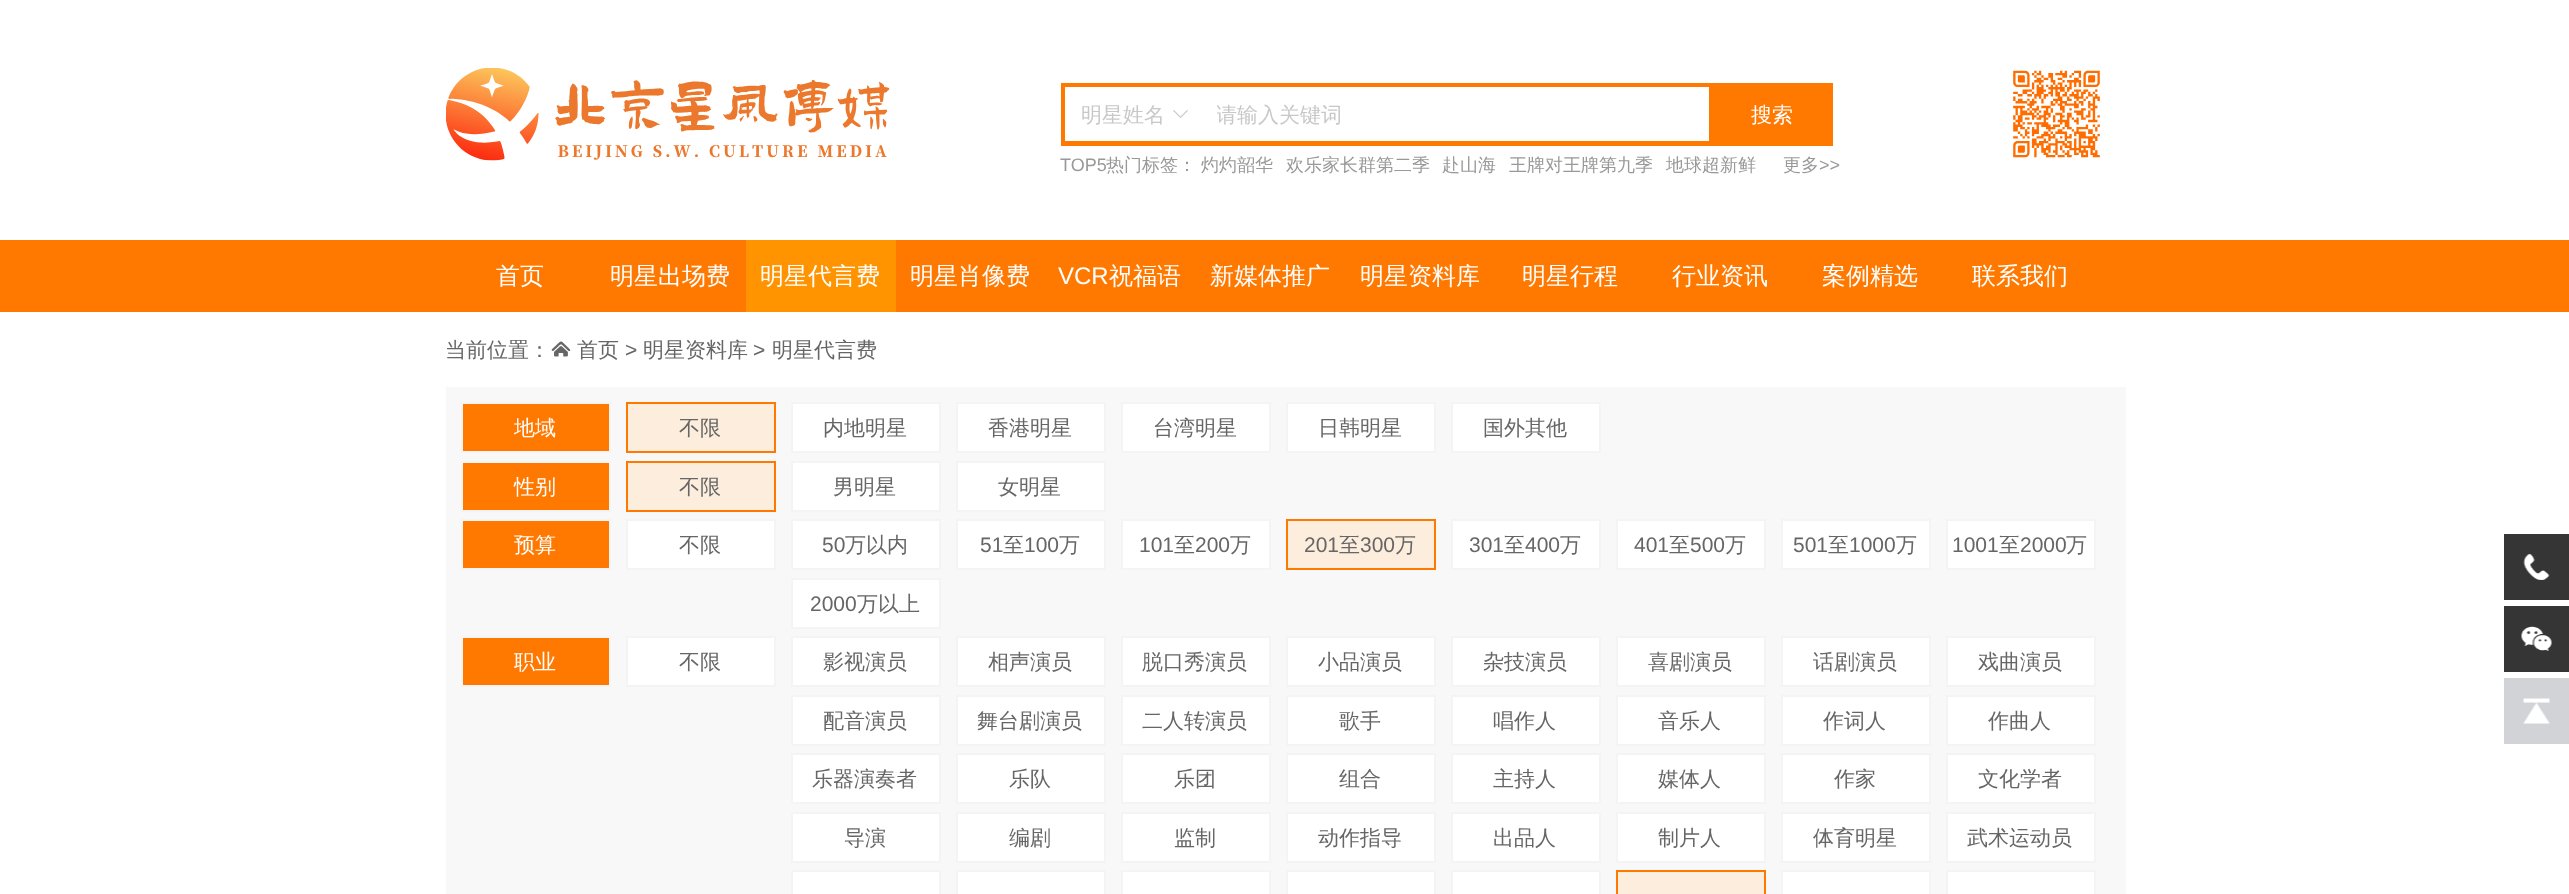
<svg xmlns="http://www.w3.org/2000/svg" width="2569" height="894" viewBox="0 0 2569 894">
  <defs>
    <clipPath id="clip1"><rect x="1217" y="102" width="487" height="27"/></clipPath>
  </defs>
  <rect width="100%" height="100%" fill="#ffffff"/>
  <image x="446" y="68" width="444" height="93" href="img1.png"/>
  <rect x="1061" y="83" width="772" height="63" fill="#ff7900"/>
  <rect x="1065" y="87" width="644" height="54" fill="#ffffff"/>
  <text x="1081" y="122" font-family="WenQuanYi Zen Hei" font-size="21" font-weight="500" fill="#c8c8c8">明星姓名</text>
  <image x="1173" y="110" width="15" height="8" href="img2.png"/>
  <g clip-path="url(#clip1)">
    <text x="1216" y="122" font-family="WenQuanYi Zen Hei" font-size="21" font-weight="500" fill="#c8c8c8">请输入关键词</text>
  </g>
  <text x="1751" y="122" font-family="WenQuanYi Zen Hei" font-size="21" font-weight="500" fill="#ffffff">搜索</text>
  <image x="2013" y="70" width="87" height="88" href="img3.png"/>
  <text x="1060" y="171" font-family="Liberation Sans" font-size="18" fill="#999999">TOP5</text>
  <text x="1106" y="171" font-family="WenQuanYi Zen Hei" font-size="18" font-weight="500" fill="#999999">热门标签：</text>
  <text x="1201" y="171" font-family="WenQuanYi Zen Hei" font-size="18" font-weight="500" fill="#999999">灼灼韶华</text>
  <text x="1286" y="171" font-family="WenQuanYi Zen Hei" font-size="18" font-weight="500" fill="#999999">欢乐家长群第二季</text>
  <text x="1442" y="171" font-family="WenQuanYi Zen Hei" font-size="18" font-weight="500" fill="#999999">赴山海</text>
  <text x="1509" y="171" font-family="WenQuanYi Zen Hei" font-size="18" font-weight="500" fill="#999999">王牌对王牌第九季</text>
  <text x="1666" y="171" font-family="WenQuanYi Zen Hei" font-size="18" font-weight="500" fill="#999999">地球超新鲜</text>
  <text x="1783" y="171" font-family="WenQuanYi Zen Hei" font-size="18" font-weight="500" fill="#999999">更多</text>
  <text x="1819" y="171" font-family="Liberation Sans" font-size="18" fill="#999999">&gt;&gt;</text>
  <rect x="0" y="240" width="2569" height="72" fill="#ff7900"/>
  <text x="496" y="284" font-family="WenQuanYi Zen Hei" font-size="24" font-weight="500" fill="#ffffff">首页</text>
  <text x="610" y="284" font-family="WenQuanYi Zen Hei" font-size="24" font-weight="500" fill="#ffffff">明星出场费</text>
  <rect x="746" y="240" width="150" height="72" fill="#ff9400"/>
  <text x="760" y="284" font-family="WenQuanYi Zen Hei" font-size="24" font-weight="500" fill="#ffffff">明星代言费</text>
  <text x="910" y="284" font-family="WenQuanYi Zen Hei" font-size="24" font-weight="500" fill="#ffffff">明星肖像费</text>
  <text x="1058" y="284" font-family="Liberation Sans" font-size="24" fill="#ffffff">VCR</text>
  <text x="1109" y="284" font-family="WenQuanYi Zen Hei" font-size="24" font-weight="500" fill="#ffffff">祝福语</text>
  <text x="1210" y="284" font-family="WenQuanYi Zen Hei" font-size="24" font-weight="500" fill="#ffffff">新媒体推广</text>
  <text x="1360" y="284" font-family="WenQuanYi Zen Hei" font-size="24" font-weight="500" fill="#ffffff">明星资料库</text>
  <text x="1522" y="284" font-family="WenQuanYi Zen Hei" font-size="24" font-weight="500" fill="#ffffff">明星行程</text>
  <text x="1672" y="284" font-family="WenQuanYi Zen Hei" font-size="24" font-weight="500" fill="#ffffff">行业资讯</text>
  <text x="1822" y="284" font-family="WenQuanYi Zen Hei" font-size="24" font-weight="500" fill="#ffffff">案例精选</text>
  <text x="1972" y="284" font-family="WenQuanYi Zen Hei" font-size="24" font-weight="500" fill="#ffffff">联系我们</text>
  <text x="445" y="357" font-family="WenQuanYi Zen Hei" font-size="21" font-weight="500" fill="#666666">当前位置：</text>
  <image x="551" y="341" width="20" height="16" href="img4.png"/>
  <text x="577" y="357" font-family="WenQuanYi Zen Hei" font-size="21" font-weight="500" fill="#666666">首页</text>
  <text x="625" y="357" font-family="Liberation Sans" font-size="21" fill="#666666">&gt;</text>
  <text x="643" y="357" font-family="WenQuanYi Zen Hei" font-size="21" font-weight="500" fill="#666666">明星资料库</text>
  <text x="753" y="357" font-family="Liberation Sans" font-size="21" fill="#666666">&gt;</text>
  <text x="772" y="357" font-family="WenQuanYi Zen Hei" font-size="21" font-weight="500" fill="#666666">明星代言费</text>
  <rect x="446" y="387" width="1680" height="507" fill="#f8f8f8"/>
  <rect x="462" y="403" width="148" height="49" fill="#ff7900" stroke="#f4f4f4" stroke-width="2"/>
  <text x="514" y="435" font-family="WenQuanYi Zen Hei" font-size="21" font-weight="500" fill="#ffffff">地域</text>
  <rect x="627" y="403" width="148" height="49" fill="#fceddc" stroke="#ff7900" stroke-width="2"/>
  <text x="679" y="435" font-family="WenQuanYi Zen Hei" font-size="21" font-weight="500" fill="#666666">不限</text>
  <rect x="792" y="403" width="148" height="49" fill="#ffffff" stroke="#f4f4f4" stroke-width="2"/>
  <text x="823" y="435" font-family="WenQuanYi Zen Hei" font-size="21" font-weight="500" fill="#666666">内地明星</text>
  <rect x="957" y="403" width="148" height="49" fill="#ffffff" stroke="#f4f4f4" stroke-width="2"/>
  <text x="988" y="435" font-family="WenQuanYi Zen Hei" font-size="21" font-weight="500" fill="#666666">香港明星</text>
  <rect x="1122" y="403" width="148" height="49" fill="#ffffff" stroke="#f4f4f4" stroke-width="2"/>
  <text x="1153" y="435" font-family="WenQuanYi Zen Hei" font-size="21" font-weight="500" fill="#666666">台湾明星</text>
  <rect x="1287" y="403" width="148" height="49" fill="#ffffff" stroke="#f4f4f4" stroke-width="2"/>
  <text x="1318" y="435" font-family="WenQuanYi Zen Hei" font-size="21" font-weight="500" fill="#666666">日韩明星</text>
  <rect x="1452" y="403" width="148" height="49" fill="#ffffff" stroke="#f4f4f4" stroke-width="2"/>
  <text x="1483" y="435" font-family="WenQuanYi Zen Hei" font-size="21" font-weight="500" fill="#666666">国外其他</text>
  <rect x="462" y="462" width="148" height="49" fill="#ff7900" stroke="#f4f4f4" stroke-width="2"/>
  <text x="514" y="494" font-family="WenQuanYi Zen Hei" font-size="21" font-weight="500" fill="#ffffff">性别</text>
  <rect x="627" y="462" width="148" height="49" fill="#fceddc" stroke="#ff7900" stroke-width="2"/>
  <text x="679" y="494" font-family="WenQuanYi Zen Hei" font-size="21" font-weight="500" fill="#666666">不限</text>
  <rect x="792" y="462" width="148" height="49" fill="#ffffff" stroke="#f4f4f4" stroke-width="2"/>
  <text x="833" y="494" font-family="WenQuanYi Zen Hei" font-size="21" font-weight="500" fill="#666666">男明星</text>
  <rect x="957" y="462" width="148" height="49" fill="#ffffff" stroke="#f4f4f4" stroke-width="2"/>
  <text x="998" y="494" font-family="WenQuanYi Zen Hei" font-size="21" font-weight="500" fill="#666666">女明星</text>
  <rect x="462" y="520" width="148" height="49" fill="#ff7900" stroke="#f4f4f4" stroke-width="2"/>
  <text x="514" y="552" font-family="WenQuanYi Zen Hei" font-size="21" font-weight="500" fill="#ffffff">预算</text>
  <rect x="627" y="520" width="148" height="49" fill="#ffffff" stroke="#f4f4f4" stroke-width="2"/>
  <text x="679" y="552" font-family="WenQuanYi Zen Hei" font-size="21" font-weight="500" fill="#666666">不限</text>
  <rect x="792" y="520" width="148" height="49" fill="#ffffff" stroke="#f4f4f4" stroke-width="2"/>
  <text x="822" y="552" font-family="Liberation Sans" font-size="21" fill="#666666">50</text>
  <text x="845" y="552" font-family="WenQuanYi Zen Hei" font-size="21" font-weight="500" fill="#666666">万以内</text>
  <rect x="957" y="520" width="148" height="49" fill="#ffffff" stroke="#f4f4f4" stroke-width="2"/>
  <text x="980" y="552" font-family="Liberation Sans" font-size="21" fill="#666666">51</text>
  <text x="1003" y="552" font-family="WenQuanYi Zen Hei" font-size="21" font-weight="500" fill="#666666">至</text>
  <text x="1024" y="552" font-family="Liberation Sans" font-size="21" fill="#666666">100</text>
  <text x="1059" y="552" font-family="WenQuanYi Zen Hei" font-size="21" font-weight="500" fill="#666666">万</text>
  <rect x="1122" y="520" width="148" height="49" fill="#ffffff" stroke="#f4f4f4" stroke-width="2"/>
  <text x="1139" y="552" font-family="Liberation Sans" font-size="21" fill="#666666">101</text>
  <text x="1174" y="552" font-family="WenQuanYi Zen Hei" font-size="21" font-weight="500" fill="#666666">至</text>
  <text x="1195" y="552" font-family="Liberation Sans" font-size="21" fill="#666666">200</text>
  <text x="1230" y="552" font-family="WenQuanYi Zen Hei" font-size="21" font-weight="500" fill="#666666">万</text>
  <rect x="1287" y="520" width="148" height="49" fill="#fceddc" stroke="#ff7900" stroke-width="2"/>
  <text x="1304" y="552" font-family="Liberation Sans" font-size="21" fill="#666666">201</text>
  <text x="1339" y="552" font-family="WenQuanYi Zen Hei" font-size="21" font-weight="500" fill="#666666">至</text>
  <text x="1360" y="552" font-family="Liberation Sans" font-size="21" fill="#666666">300</text>
  <text x="1395" y="552" font-family="WenQuanYi Zen Hei" font-size="21" font-weight="500" fill="#666666">万</text>
  <rect x="1452" y="520" width="148" height="49" fill="#ffffff" stroke="#f4f4f4" stroke-width="2"/>
  <text x="1469" y="552" font-family="Liberation Sans" font-size="21" fill="#666666">301</text>
  <text x="1504" y="552" font-family="WenQuanYi Zen Hei" font-size="21" font-weight="500" fill="#666666">至</text>
  <text x="1525" y="552" font-family="Liberation Sans" font-size="21" fill="#666666">400</text>
  <text x="1560" y="552" font-family="WenQuanYi Zen Hei" font-size="21" font-weight="500" fill="#666666">万</text>
  <rect x="1617" y="520" width="148" height="49" fill="#ffffff" stroke="#f4f4f4" stroke-width="2"/>
  <text x="1634" y="552" font-family="Liberation Sans" font-size="21" fill="#666666">401</text>
  <text x="1669" y="552" font-family="WenQuanYi Zen Hei" font-size="21" font-weight="500" fill="#666666">至</text>
  <text x="1690" y="552" font-family="Liberation Sans" font-size="21" fill="#666666">500</text>
  <text x="1725" y="552" font-family="WenQuanYi Zen Hei" font-size="21" font-weight="500" fill="#666666">万</text>
  <rect x="1782" y="520" width="148" height="49" fill="#ffffff" stroke="#f4f4f4" stroke-width="2"/>
  <text x="1793" y="552" font-family="Liberation Sans" font-size="21" fill="#666666">501</text>
  <text x="1828" y="552" font-family="WenQuanYi Zen Hei" font-size="21" font-weight="500" fill="#666666">至</text>
  <text x="1849" y="552" font-family="Liberation Sans" font-size="21" fill="#666666">1000</text>
  <text x="1896" y="552" font-family="WenQuanYi Zen Hei" font-size="21" font-weight="500" fill="#666666">万</text>
  <rect x="1947" y="520" width="148" height="49" fill="#ffffff" stroke="#f4f4f4" stroke-width="2"/>
  <text x="1952" y="552" font-family="Liberation Sans" font-size="21" fill="#666666">1001</text>
  <text x="1999" y="552" font-family="WenQuanYi Zen Hei" font-size="21" font-weight="500" fill="#666666">至</text>
  <text x="2020" y="552" font-family="Liberation Sans" font-size="21" fill="#666666">2000</text>
  <text x="2066" y="552" font-family="WenQuanYi Zen Hei" font-size="21" font-weight="500" fill="#666666">万</text>
  <rect x="792" y="579" width="148" height="49" fill="#ffffff" stroke="#f4f4f4" stroke-width="2"/>
  <text x="810" y="611" font-family="Liberation Sans" font-size="21" fill="#666666">2000</text>
  <text x="857" y="611" font-family="WenQuanYi Zen Hei" font-size="21" font-weight="500" fill="#666666">万以上</text>
  <rect x="462" y="637" width="148" height="49" fill="#ff7900" stroke="#f4f4f4" stroke-width="2"/>
  <text x="514" y="669" font-family="WenQuanYi Zen Hei" font-size="21" font-weight="500" fill="#ffffff">职业</text>
  <rect x="627" y="637" width="148" height="49" fill="#ffffff" stroke="#f4f4f4" stroke-width="2"/>
  <text x="679" y="669" font-family="WenQuanYi Zen Hei" font-size="21" font-weight="500" fill="#666666">不限</text>
  <rect x="792" y="637" width="148" height="49" fill="#ffffff" stroke="#f4f4f4" stroke-width="2"/>
  <text x="823" y="669" font-family="WenQuanYi Zen Hei" font-size="21" font-weight="500" fill="#666666">影视演员</text>
  <rect x="957" y="637" width="148" height="49" fill="#ffffff" stroke="#f4f4f4" stroke-width="2"/>
  <text x="988" y="669" font-family="WenQuanYi Zen Hei" font-size="21" font-weight="500" fill="#666666">相声演员</text>
  <rect x="1122" y="637" width="148" height="49" fill="#ffffff" stroke="#f4f4f4" stroke-width="2"/>
  <text x="1142" y="669" font-family="WenQuanYi Zen Hei" font-size="21" font-weight="500" fill="#666666">脱口秀演员</text>
  <rect x="1287" y="637" width="148" height="49" fill="#ffffff" stroke="#f4f4f4" stroke-width="2"/>
  <text x="1318" y="669" font-family="WenQuanYi Zen Hei" font-size="21" font-weight="500" fill="#666666">小品演员</text>
  <rect x="1452" y="637" width="148" height="49" fill="#ffffff" stroke="#f4f4f4" stroke-width="2"/>
  <text x="1483" y="669" font-family="WenQuanYi Zen Hei" font-size="21" font-weight="500" fill="#666666">杂技演员</text>
  <rect x="1617" y="637" width="148" height="49" fill="#ffffff" stroke="#f4f4f4" stroke-width="2"/>
  <text x="1648" y="669" font-family="WenQuanYi Zen Hei" font-size="21" font-weight="500" fill="#666666">喜剧演员</text>
  <rect x="1782" y="637" width="148" height="49" fill="#ffffff" stroke="#f4f4f4" stroke-width="2"/>
  <text x="1813" y="669" font-family="WenQuanYi Zen Hei" font-size="21" font-weight="500" fill="#666666">话剧演员</text>
  <rect x="1947" y="637" width="148" height="49" fill="#ffffff" stroke="#f4f4f4" stroke-width="2"/>
  <text x="1978" y="669" font-family="WenQuanYi Zen Hei" font-size="21" font-weight="500" fill="#666666">戏曲演员</text>
  <rect x="792" y="696" width="148" height="49" fill="#ffffff" stroke="#f4f4f4" stroke-width="2"/>
  <text x="823" y="728" font-family="WenQuanYi Zen Hei" font-size="21" font-weight="500" fill="#666666">配音演员</text>
  <rect x="957" y="696" width="148" height="49" fill="#ffffff" stroke="#f4f4f4" stroke-width="2"/>
  <text x="977" y="728" font-family="WenQuanYi Zen Hei" font-size="21" font-weight="500" fill="#666666">舞台剧演员</text>
  <rect x="1122" y="696" width="148" height="49" fill="#ffffff" stroke="#f4f4f4" stroke-width="2"/>
  <text x="1142" y="728" font-family="WenQuanYi Zen Hei" font-size="21" font-weight="500" fill="#666666">二人转演员</text>
  <rect x="1287" y="696" width="148" height="49" fill="#ffffff" stroke="#f4f4f4" stroke-width="2"/>
  <text x="1339" y="728" font-family="WenQuanYi Zen Hei" font-size="21" font-weight="500" fill="#666666">歌手</text>
  <rect x="1452" y="696" width="148" height="49" fill="#ffffff" stroke="#f4f4f4" stroke-width="2"/>
  <text x="1493" y="728" font-family="WenQuanYi Zen Hei" font-size="21" font-weight="500" fill="#666666">唱作人</text>
  <rect x="1617" y="696" width="148" height="49" fill="#ffffff" stroke="#f4f4f4" stroke-width="2"/>
  <text x="1658" y="728" font-family="WenQuanYi Zen Hei" font-size="21" font-weight="500" fill="#666666">音乐人</text>
  <rect x="1782" y="696" width="148" height="49" fill="#ffffff" stroke="#f4f4f4" stroke-width="2"/>
  <text x="1823" y="728" font-family="WenQuanYi Zen Hei" font-size="21" font-weight="500" fill="#666666">作词人</text>
  <rect x="1947" y="696" width="148" height="49" fill="#ffffff" stroke="#f4f4f4" stroke-width="2"/>
  <text x="1988" y="728" font-family="WenQuanYi Zen Hei" font-size="21" font-weight="500" fill="#666666">作曲人</text>
  <rect x="792" y="754" width="148" height="49" fill="#ffffff" stroke="#f4f4f4" stroke-width="2"/>
  <text x="812" y="786" font-family="WenQuanYi Zen Hei" font-size="21" font-weight="500" fill="#666666">乐器演奏者</text>
  <rect x="957" y="754" width="148" height="49" fill="#ffffff" stroke="#f4f4f4" stroke-width="2"/>
  <text x="1009" y="786" font-family="WenQuanYi Zen Hei" font-size="21" font-weight="500" fill="#666666">乐队</text>
  <rect x="1122" y="754" width="148" height="49" fill="#ffffff" stroke="#f4f4f4" stroke-width="2"/>
  <text x="1174" y="786" font-family="WenQuanYi Zen Hei" font-size="21" font-weight="500" fill="#666666">乐团</text>
  <rect x="1287" y="754" width="148" height="49" fill="#ffffff" stroke="#f4f4f4" stroke-width="2"/>
  <text x="1339" y="786" font-family="WenQuanYi Zen Hei" font-size="21" font-weight="500" fill="#666666">组合</text>
  <rect x="1452" y="754" width="148" height="49" fill="#ffffff" stroke="#f4f4f4" stroke-width="2"/>
  <text x="1493" y="786" font-family="WenQuanYi Zen Hei" font-size="21" font-weight="500" fill="#666666">主持人</text>
  <rect x="1617" y="754" width="148" height="49" fill="#ffffff" stroke="#f4f4f4" stroke-width="2"/>
  <text x="1658" y="786" font-family="WenQuanYi Zen Hei" font-size="21" font-weight="500" fill="#666666">媒体人</text>
  <rect x="1782" y="754" width="148" height="49" fill="#ffffff" stroke="#f4f4f4" stroke-width="2"/>
  <text x="1834" y="786" font-family="WenQuanYi Zen Hei" font-size="21" font-weight="500" fill="#666666">作家</text>
  <rect x="1947" y="754" width="148" height="49" fill="#ffffff" stroke="#f4f4f4" stroke-width="2"/>
  <text x="1978" y="786" font-family="WenQuanYi Zen Hei" font-size="21" font-weight="500" fill="#666666">文化学者</text>
  <rect x="792" y="813" width="148" height="49" fill="#ffffff" stroke="#f4f4f4" stroke-width="2"/>
  <text x="844" y="845" font-family="WenQuanYi Zen Hei" font-size="21" font-weight="500" fill="#666666">导演</text>
  <rect x="957" y="813" width="148" height="49" fill="#ffffff" stroke="#f4f4f4" stroke-width="2"/>
  <text x="1009" y="845" font-family="WenQuanYi Zen Hei" font-size="21" font-weight="500" fill="#666666">编剧</text>
  <rect x="1122" y="813" width="148" height="49" fill="#ffffff" stroke="#f4f4f4" stroke-width="2"/>
  <text x="1174" y="845" font-family="WenQuanYi Zen Hei" font-size="21" font-weight="500" fill="#666666">监制</text>
  <rect x="1287" y="813" width="148" height="49" fill="#ffffff" stroke="#f4f4f4" stroke-width="2"/>
  <text x="1318" y="845" font-family="WenQuanYi Zen Hei" font-size="21" font-weight="500" fill="#666666">动作指导</text>
  <rect x="1452" y="813" width="148" height="49" fill="#ffffff" stroke="#f4f4f4" stroke-width="2"/>
  <text x="1493" y="845" font-family="WenQuanYi Zen Hei" font-size="21" font-weight="500" fill="#666666">出品人</text>
  <rect x="1617" y="813" width="148" height="49" fill="#ffffff" stroke="#f4f4f4" stroke-width="2"/>
  <text x="1658" y="845" font-family="WenQuanYi Zen Hei" font-size="21" font-weight="500" fill="#666666">制片人</text>
  <rect x="1782" y="813" width="148" height="49" fill="#ffffff" stroke="#f4f4f4" stroke-width="2"/>
  <text x="1813" y="845" font-family="WenQuanYi Zen Hei" font-size="21" font-weight="500" fill="#666666">体育明星</text>
  <rect x="1947" y="813" width="148" height="49" fill="#ffffff" stroke="#f4f4f4" stroke-width="2"/>
  <text x="1967" y="845" font-family="WenQuanYi Zen Hei" font-size="21" font-weight="500" fill="#666666">武术运动员</text>
  <rect x="792" y="871" width="148" height="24" fill="#ffffff" stroke="#f4f4f4" stroke-width="2"/>
  <rect x="957" y="871" width="148" height="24" fill="#ffffff" stroke="#f4f4f4" stroke-width="2"/>
  <rect x="1122" y="871" width="148" height="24" fill="#ffffff" stroke="#f4f4f4" stroke-width="2"/>
  <rect x="1287" y="871" width="148" height="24" fill="#ffffff" stroke="#f4f4f4" stroke-width="2"/>
  <rect x="1452" y="871" width="148" height="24" fill="#ffffff" stroke="#f4f4f4" stroke-width="2"/>
  <rect x="1617" y="871" width="148" height="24" fill="#fceddc" stroke="#ff7900" stroke-width="2"/>
  <rect x="1782" y="871" width="148" height="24" fill="#ffffff" stroke="#f4f4f4" stroke-width="2"/>
  <rect x="1947" y="871" width="148" height="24" fill="#ffffff" stroke="#f4f4f4" stroke-width="2"/>
  <rect x="2504" y="534" width="65" height="66" fill="#353535"/>
  <image x="2523" y="554" width="27" height="26" href="img5.png"/>
  <rect x="2504" y="606" width="65" height="66" fill="#353535"/>
  <image x="2521" y="626" width="31" height="25" href="img6.png"/>
  <rect x="2504" y="678" width="65" height="66" fill="#d2d3d6"/>
  <image x="2523" y="698" width="27" height="26" href="img7.png"/>
</svg>
